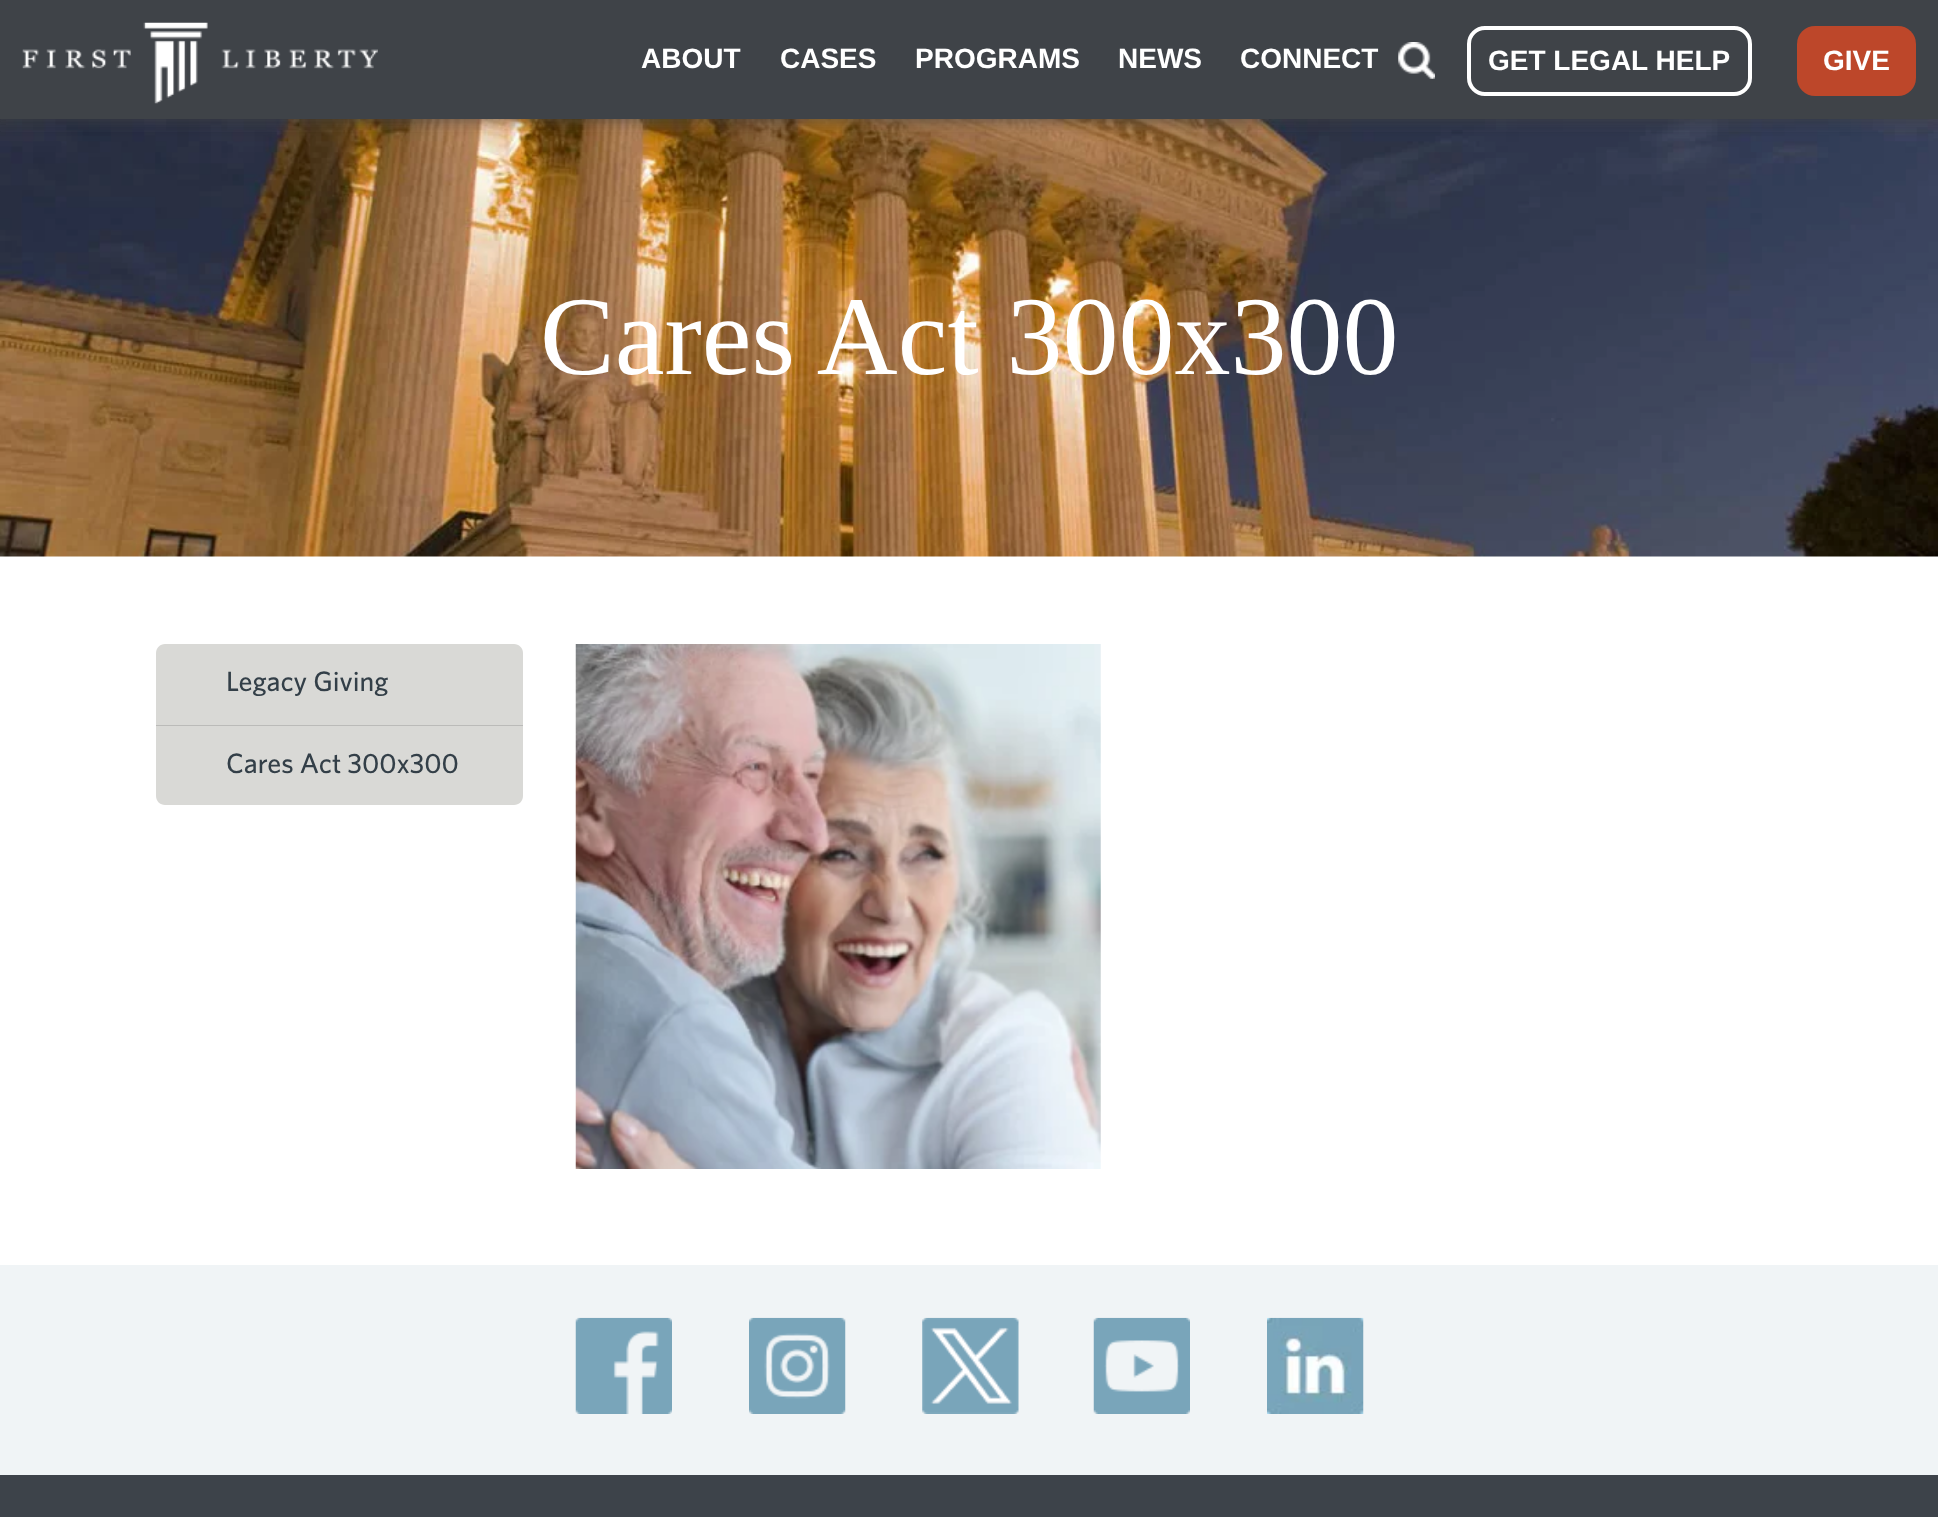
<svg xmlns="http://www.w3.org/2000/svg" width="1938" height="1517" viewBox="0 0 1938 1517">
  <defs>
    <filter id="blur1" x="-50%" y="-200%" width="200%" height="500%"><feGaussianBlur stdDeviation="9"/></filter>
  </defs>
  <rect width="100%" height="100%" fill="#ffffff"/>
  <image x="0" y="119" width="1938" height="438" href="img3.png"/>
  <rect x="-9" y="-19" width="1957" height="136" fill="#404040" filter="url(#blur1)"/>
  <rect x="0" y="0" width="1938" height="119" fill="#3f4348"/>
  <image x="22" y="22" width="356" height="82" href="img1.png"/>
  <text x="641" y="68" font-family="Liberation Sans" font-size="28" font-weight="bold" fill="#ffffff">ABOUT</text>
  <text x="780" y="68" font-family="Liberation Sans" font-size="28" font-weight="bold" fill="#ffffff">CASES</text>
  <text x="915" y="68" font-family="Liberation Sans" font-size="28" font-weight="bold" fill="#ffffff">PROGRAMS</text>
  <text x="1118" y="68" font-family="Liberation Sans" font-size="28" font-weight="bold" fill="#ffffff">NEWS</text>
  <text x="1240" y="68" font-family="Liberation Sans" font-size="28" font-weight="bold" fill="#ffffff">CONNECT</text>
  <image x="1398" y="42" width="37" height="37" href="img2.png"/>
  <rect x="1469" y="28" width="281" height="66" rx="16" fill="none" stroke="#ffffff" stroke-width="4"/>
  <text x="1488" y="70" font-family="Liberation Sans" font-size="28" font-weight="bold" fill="#ffffff">GET LEGAL HELP</text>
  <rect x="1797" y="26" width="119" height="70" rx="18" fill="#bd472a"/>
  <text x="1823" y="70" font-family="Liberation Sans" font-size="28" font-weight="bold" fill="#ffffff">GIVE</text>
  <text x="540" y="374" font-family="Liberation Serif" font-size="112" fill="#ffffff">Cares Act 300x300</text>
  <path d="M165 644H514C519 644 523 648 523 653V725H156V653C156 648 160 644 165 644Z" fill="#d9d9d6"/>
  <rect x="156" y="725" width="367" height="1" fill="#bbbbb9"/>
  <text x="226" y="691" font-family="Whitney" font-size="28" font-weight="500" fill="#333f48">Legacy Giving</text>
  <path d="M156 726H523V796C523 801 519 805 514 805H165C160 805 156 801 156 796Z" fill="#d9d9d6"/>
  <text x="226" y="773" font-family="Whitney" font-size="28" font-weight="500" fill="#333f48">Cares Act 300x300</text>
  <image x="575" y="644" width="526" height="525" href="img4.png"/>
  <rect x="0" y="1265" width="1938" height="210" fill="#f0f4f6"/>
  <image x="575" y="1317" width="97" height="97" href="img5.png"/>
  <image x="749" y="1317" width="97" height="97" href="img6.png"/>
  <image x="922" y="1317" width="97" height="97" href="img7.png"/>
  <image x="1093" y="1317" width="97" height="97" href="img8.png"/>
  <image x="1267" y="1317" width="97" height="97" href="img9.png"/>
  <rect x="0" y="1475" width="1938" height="42" fill="#3d434a"/>
</svg>
